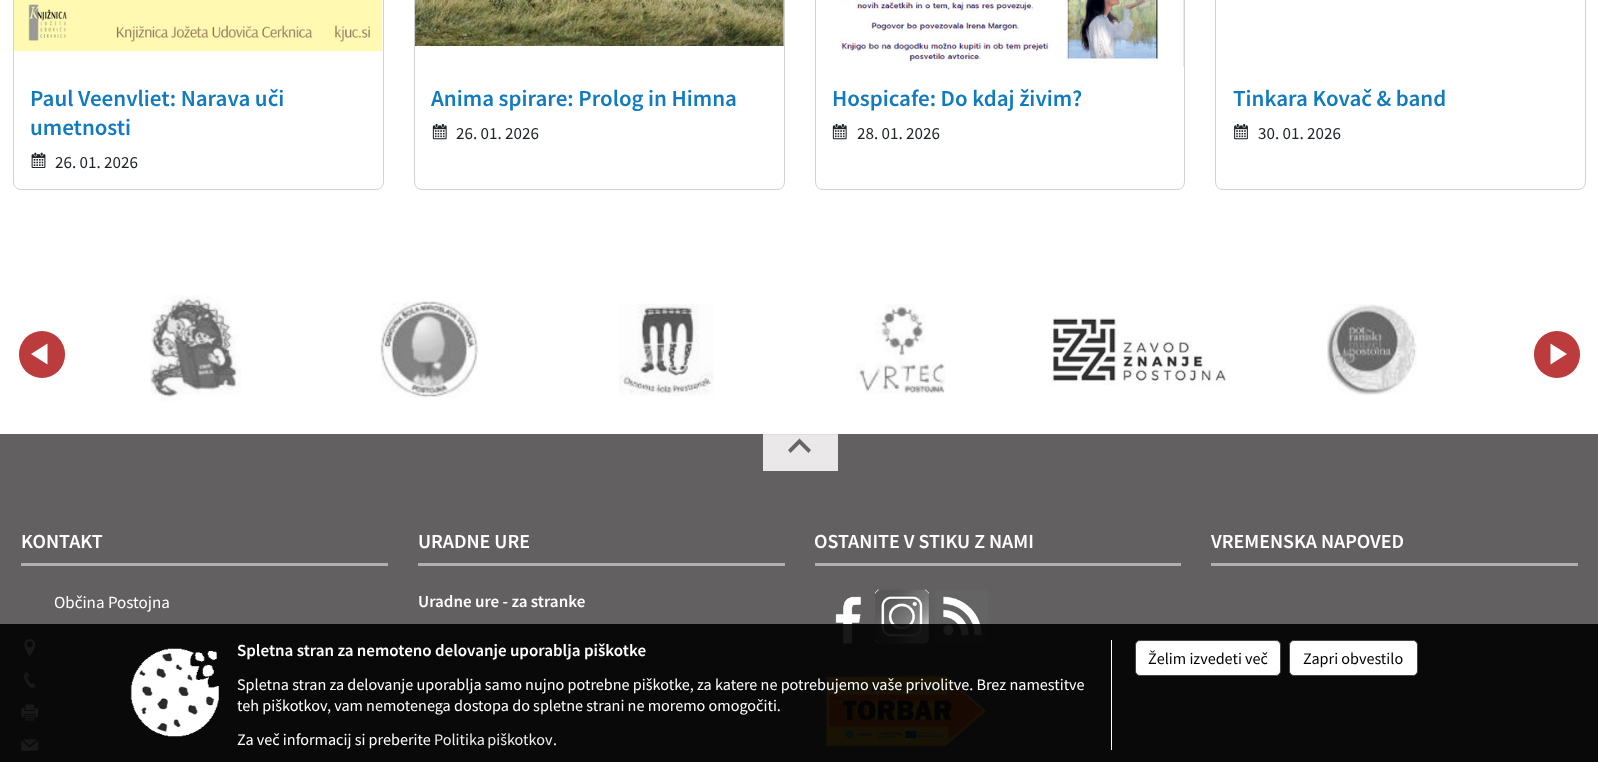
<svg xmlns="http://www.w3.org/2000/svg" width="1598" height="762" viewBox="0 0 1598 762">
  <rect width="100%" height="100%" fill="#ffffff"/>
  <rect x="13.5" y="-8.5" width="370" height="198" rx="7.5" fill="none" stroke="#d2d2d2"/>
  <image x="14" y="0" width="369" height="51" href="img1.png"/>
  <text x="30" y="106" font-family="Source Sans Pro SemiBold" font-size="23" font-weight="600" fill="#127abf">Paul Veenvliet: Narava uči</text>
  <text x="30" y="135" font-family="Source Sans Pro SemiBold" font-size="23" font-weight="600" fill="#127abf">umetnosti</text>
  <image x="31" y="152" width="15" height="16" href="img2.png"/>
  <text x="55" y="168" font-family="Source Sans Pro" font-size="17" fill="#212529">26. 01. 2026</text>
  <rect x="414.5" y="-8.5" width="370" height="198" rx="7.5" fill="none" stroke="#d2d2d2"/>
  <image x="415" y="0" width="369" height="46" href="img3.png"/>
  <text x="431" y="106" font-family="Source Sans Pro SemiBold" font-size="23" font-weight="600" fill="#127abf">Anima spirare: Prolog in Himna</text>
  <image x="432" y="123" width="15" height="17" href="img4.png"/>
  <text x="456" y="139" font-family="Source Sans Pro" font-size="17" fill="#212529">26. 01. 2026</text>
  <rect x="815.5" y="-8.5" width="369" height="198" rx="7.5" fill="none" stroke="#d2d2d2"/>
  <image x="839" y="0" width="345" height="67" href="img5.png"/>
  <text x="832" y="106" font-family="Source Sans Pro SemiBold" font-size="23" font-weight="600" fill="#127abf">Hospicafe: Do kdaj živim?</text>
  <image x="832" y="123" width="15" height="17" href="img4.png"/>
  <text x="857" y="139" font-family="Source Sans Pro" font-size="17" fill="#212529">28. 01. 2026</text>
  <rect x="1215.5" y="-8.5" width="370" height="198" rx="7.5" fill="none" stroke="#d2d2d2"/>
  <text x="1233" y="106" font-family="Source Sans Pro SemiBold" font-size="23" font-weight="600" fill="#127abf">Tinkara Kovač &amp; band</text>
  <image x="1234" y="123" width="14" height="17" href="img6.png"/>
  <text x="1258" y="139" font-family="Source Sans Pro" font-size="17" fill="#212529">30. 01. 2026</text>
  <rect x="19" y="331" width="46" height="47" rx="23" fill="#bc3b3c"/>
  <path d="M47.5 364.5L31 354L47.5 343.5Z" fill="#ffffff"/>
  <image x="150" y="295" width="91" height="107" href="img7.png"/>
  <image x="380" y="301" width="98" height="97" href="img8.png"/>
  <image x="619" y="303" width="95" height="93" href="img9.png"/>
  <image x="855" y="304" width="90" height="90" href="img10.png"/>
  <image x="1051" y="318" width="175" height="67" href="img11.png"/>
  <image x="1327" y="304" width="90" height="91" href="img12.png"/>
  <rect x="1534" y="331" width="46" height="47" rx="23" fill="#bc3b3c"/>
  <path d="M1550.5 343.5L1567 354L1550.5 364.5Z" fill="#ffffff"/>
  <rect x="0" y="434" width="1598" height="328" fill="#626060"/>
  <rect x="763" y="435" width="75" height="36" fill="#eae8e8"/>
  <rect x="763" y="434" width="75" height="1" fill="#dedcdc"/>
  <path d="M790.5 453L788 450L799.5 438.5L811 450L808.5 453L799.5 444Z" fill="#666666"/>
  <rect x="21" y="563" width="367" height="3" fill="#b1b0b0"/>
  <text x="21" y="548" font-family="Source Sans Pro SemiBold" font-size="20" font-weight="600" fill="#ffffff">KONTAKT</text>
  <text x="54" y="608" font-family="Source Sans Pro" font-size="17" fill="#ffffff">Občina Postojna</text>
  <image x="24" y="639" width="12" height="17" href="img13.png"/>
  <image x="24" y="672" width="12" height="16" href="img14.png"/>
  <image x="21" y="704" width="18" height="17" href="img15.png"/>
  <image x="21" y="739" width="18" height="12" href="img16.png"/>
  <rect x="418" y="563" width="367" height="3" fill="#b1b0b0"/>
  <text x="418" y="548" font-family="Source Sans Pro SemiBold" font-size="20" font-weight="600" fill="#ffffff">URADNE URE</text>
  <text x="418" y="607" font-family="Source Sans Pro SemiBold" font-size="17" font-weight="600" fill="#ffffff">Uradne ure - za stranke</text>
  <rect x="815" y="563" width="366" height="3" fill="#b1b0b0"/>
  <text x="814" y="548" font-family="Source Sans Pro SemiBold" font-size="20" font-weight="600" fill="#ffffff">OSTANITE V STIKU Z NAMI</text>
  <image x="835" y="596" width="26" height="48" href="img17.png"/>
  <image x="875" y="589" width="54" height="55" href="img18.png"/>
  <image x="935" y="590" width="53" height="53" href="img19.png"/>
  <image x="815" y="675" width="171" height="72" href="img20.png"/>
  <rect x="1211" y="563" width="367" height="3" fill="#b1b0b0"/>
  <text x="1211" y="548" font-family="Source Sans Pro SemiBold" font-size="20" font-weight="600" fill="#ffffff">VREMENSKA NAPOVED</text>
  <rect x="0" y="624" width="1598" height="138" fill="#000000" fill-opacity="0.9"/>
  <image x="130" y="648" width="89" height="89" href="img21.png"/>
  <rect x="1111" y="640" width="1" height="110" fill="#ffffff"/>
  <text x="237" y="656" font-family="Source Sans Pro SemiBold" font-size="17" font-weight="600" fill="#ffffff">Spletna stran za nemoteno delovanje uporablja piškotke</text>
  <text x="237" y="690" font-family="Source Sans Pro" font-size="16.15" fill="#ffffff">Spletna stran za delovanje uporablja samo nujno potrebne piškotke, za katere ne potrebujemo vaše privolitve. Brez namestitve</text>
  <text x="237" y="711" font-family="Source Sans Pro" font-size="16.15" fill="#ffffff">teh piškotkov, vam nemotenega dostopa do spletne strani ne moremo omogočiti.</text>
  <text x="237" y="745" font-family="Source Sans Pro" font-size="16.15" fill="#ffffff">Za več informacij si preberite</text>
  <text x="434" y="745" word-spacing="-1" font-family="Source Sans Pro" font-size="16.15" fill="#eeeeee">Politika piškotkov</text>
  <text x="553" y="745" font-family="Source Sans Pro" font-size="16.15" fill="#ffffff">.</text>
  <rect x="1135.5" y="640.5" width="145" height="35" rx="4.5" fill="#ffffff" stroke="#444444"/>
  <text x="1148" y="664" font-family="Source Sans Pro" font-size="16.15" fill="#000000">Želim izvedeti več</text>
  <rect x="1289.5" y="640.5" width="128" height="35" rx="4.5" fill="#ffffff" stroke="#444444"/>
  <text x="1303" y="664" font-family="Source Sans Pro" font-size="16.15" fill="#000000">Zapri obvestilo</text>
</svg>
